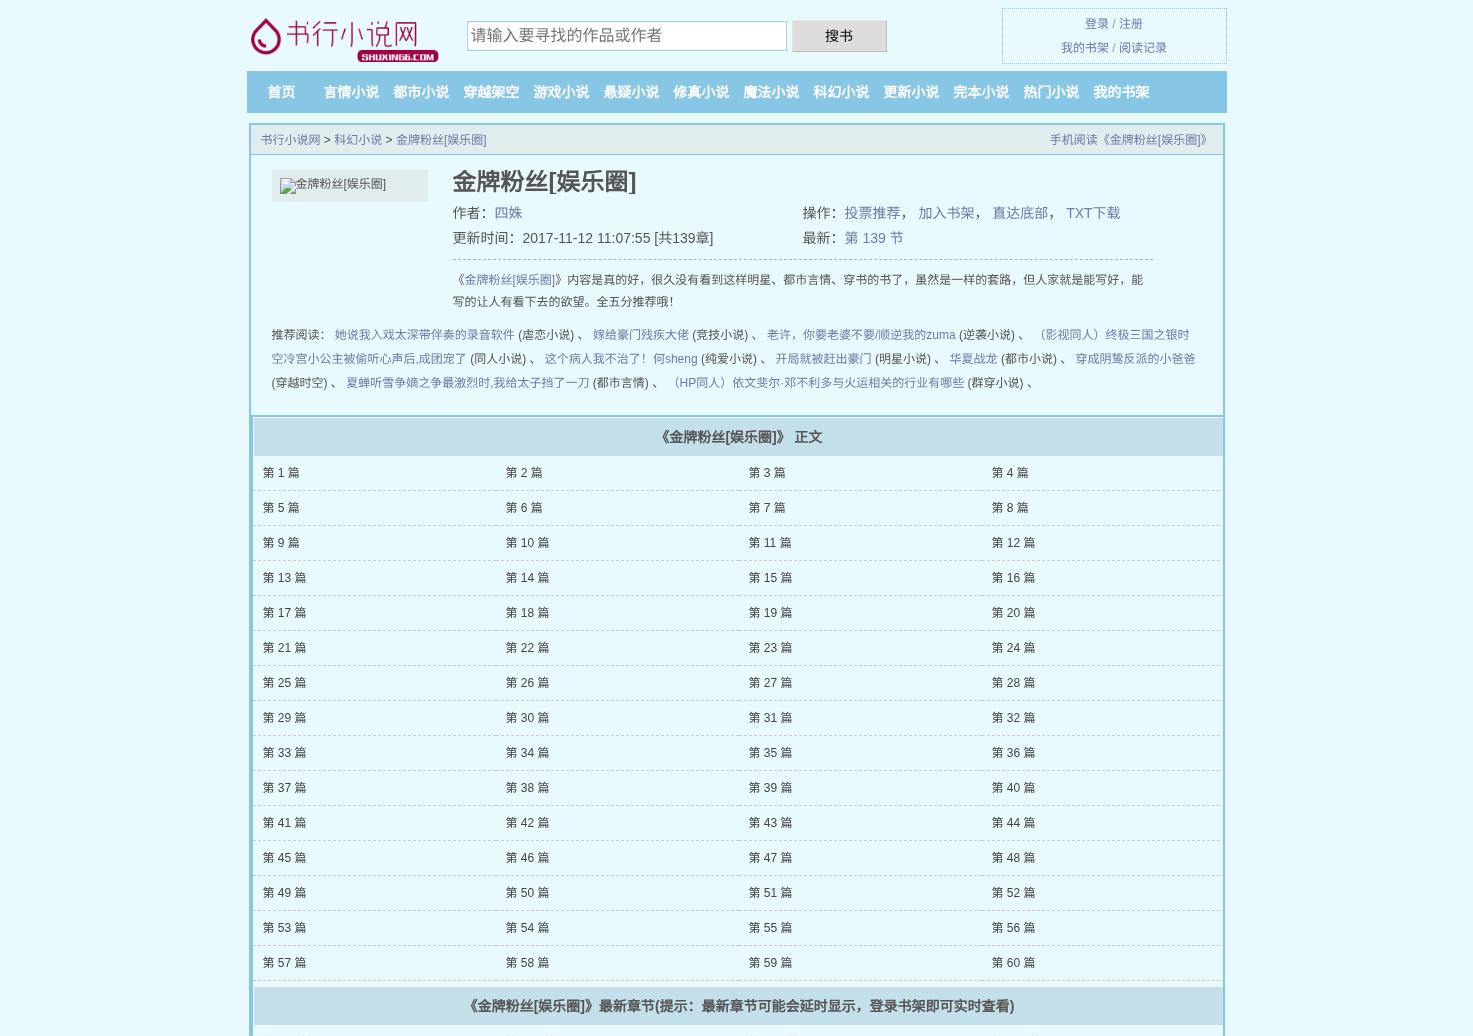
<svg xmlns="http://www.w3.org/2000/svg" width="1473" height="1036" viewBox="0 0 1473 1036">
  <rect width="100%" height="100%" fill="#ffffff"/>
  <image x="0" y="0" width="1473" height="1036" href="img1.png"/>
</svg>
